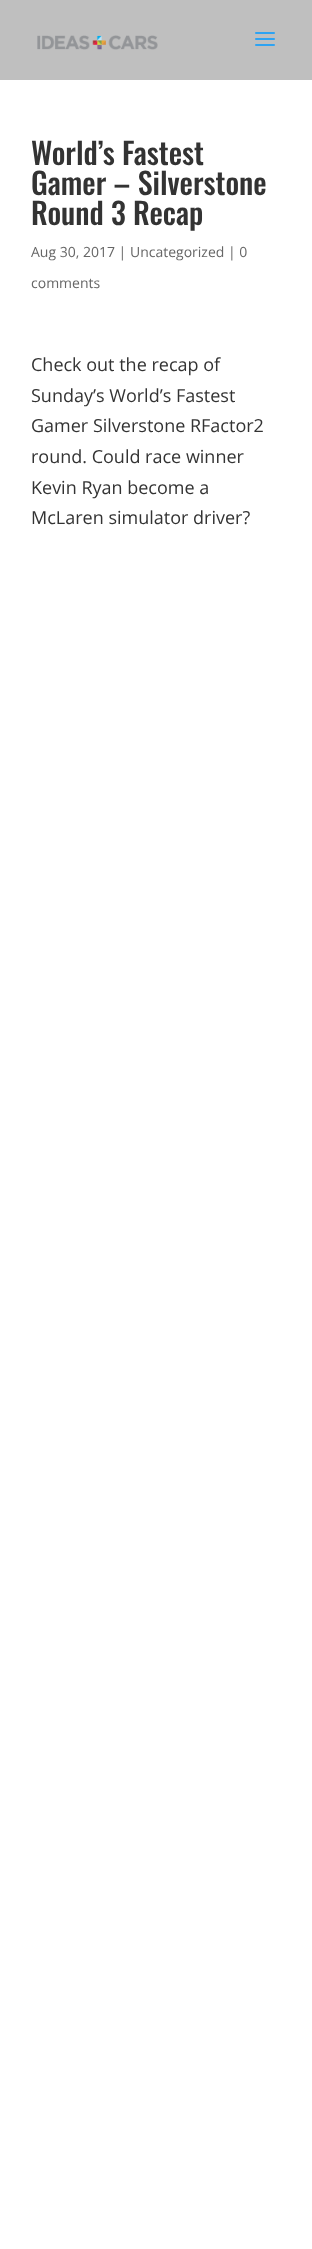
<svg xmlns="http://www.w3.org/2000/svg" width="312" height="2249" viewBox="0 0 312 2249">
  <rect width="100%" height="100%" fill="#ffffff"/>
  <rect x="0" y="0" width="312" height="80" fill="#bfbfbf"/>
  <image x="37" y="35" width="121" height="15" href="img1.png"/>
  <image x="255" y="32" width="20" height="14" href="img2.png"/>
  <text x="31" y="165" font-family="Oswald" font-size="30" font-weight="500" fill="#333333">World’s Fastest</text>
  <text x="31" y="195" font-family="Oswald" font-size="30" font-weight="500" fill="#333333">Gamer – Silverstone</text>
  <text x="31" y="225" font-family="Oswald" font-size="30" font-weight="500" fill="#333333">Round 3 Recap</text>
  <text x="31" y="257" font-family="Open Sans" font-size="14" fill="#666666">Aug 30, 2017 | Uncategorized | 0</text>
  <text x="31" y="288" font-family="Open Sans" font-size="14" fill="#666666">comments</text>
  <text x="31" y="371" font-family="Open Sans" font-size="18" fill="#333333">Check out the recap of</text>
  <text x="31" y="402" font-family="Open Sans" font-size="18" fill="#333333">Sunday’s World’s Fastest</text>
  <text x="31" y="432" font-family="Open Sans" font-size="18" fill="#333333">Gamer Silverstone RFactor2</text>
  <text x="31" y="463" font-family="Open Sans" font-size="18" fill="#333333">round. Could race winner</text>
  <text x="31" y="494" font-family="Open Sans" font-size="18" fill="#333333">Kevin Ryan become a</text>
  <text x="31" y="524" font-family="Open Sans" font-size="18" fill="#333333">McLaren simulator driver?</text>
</svg>
